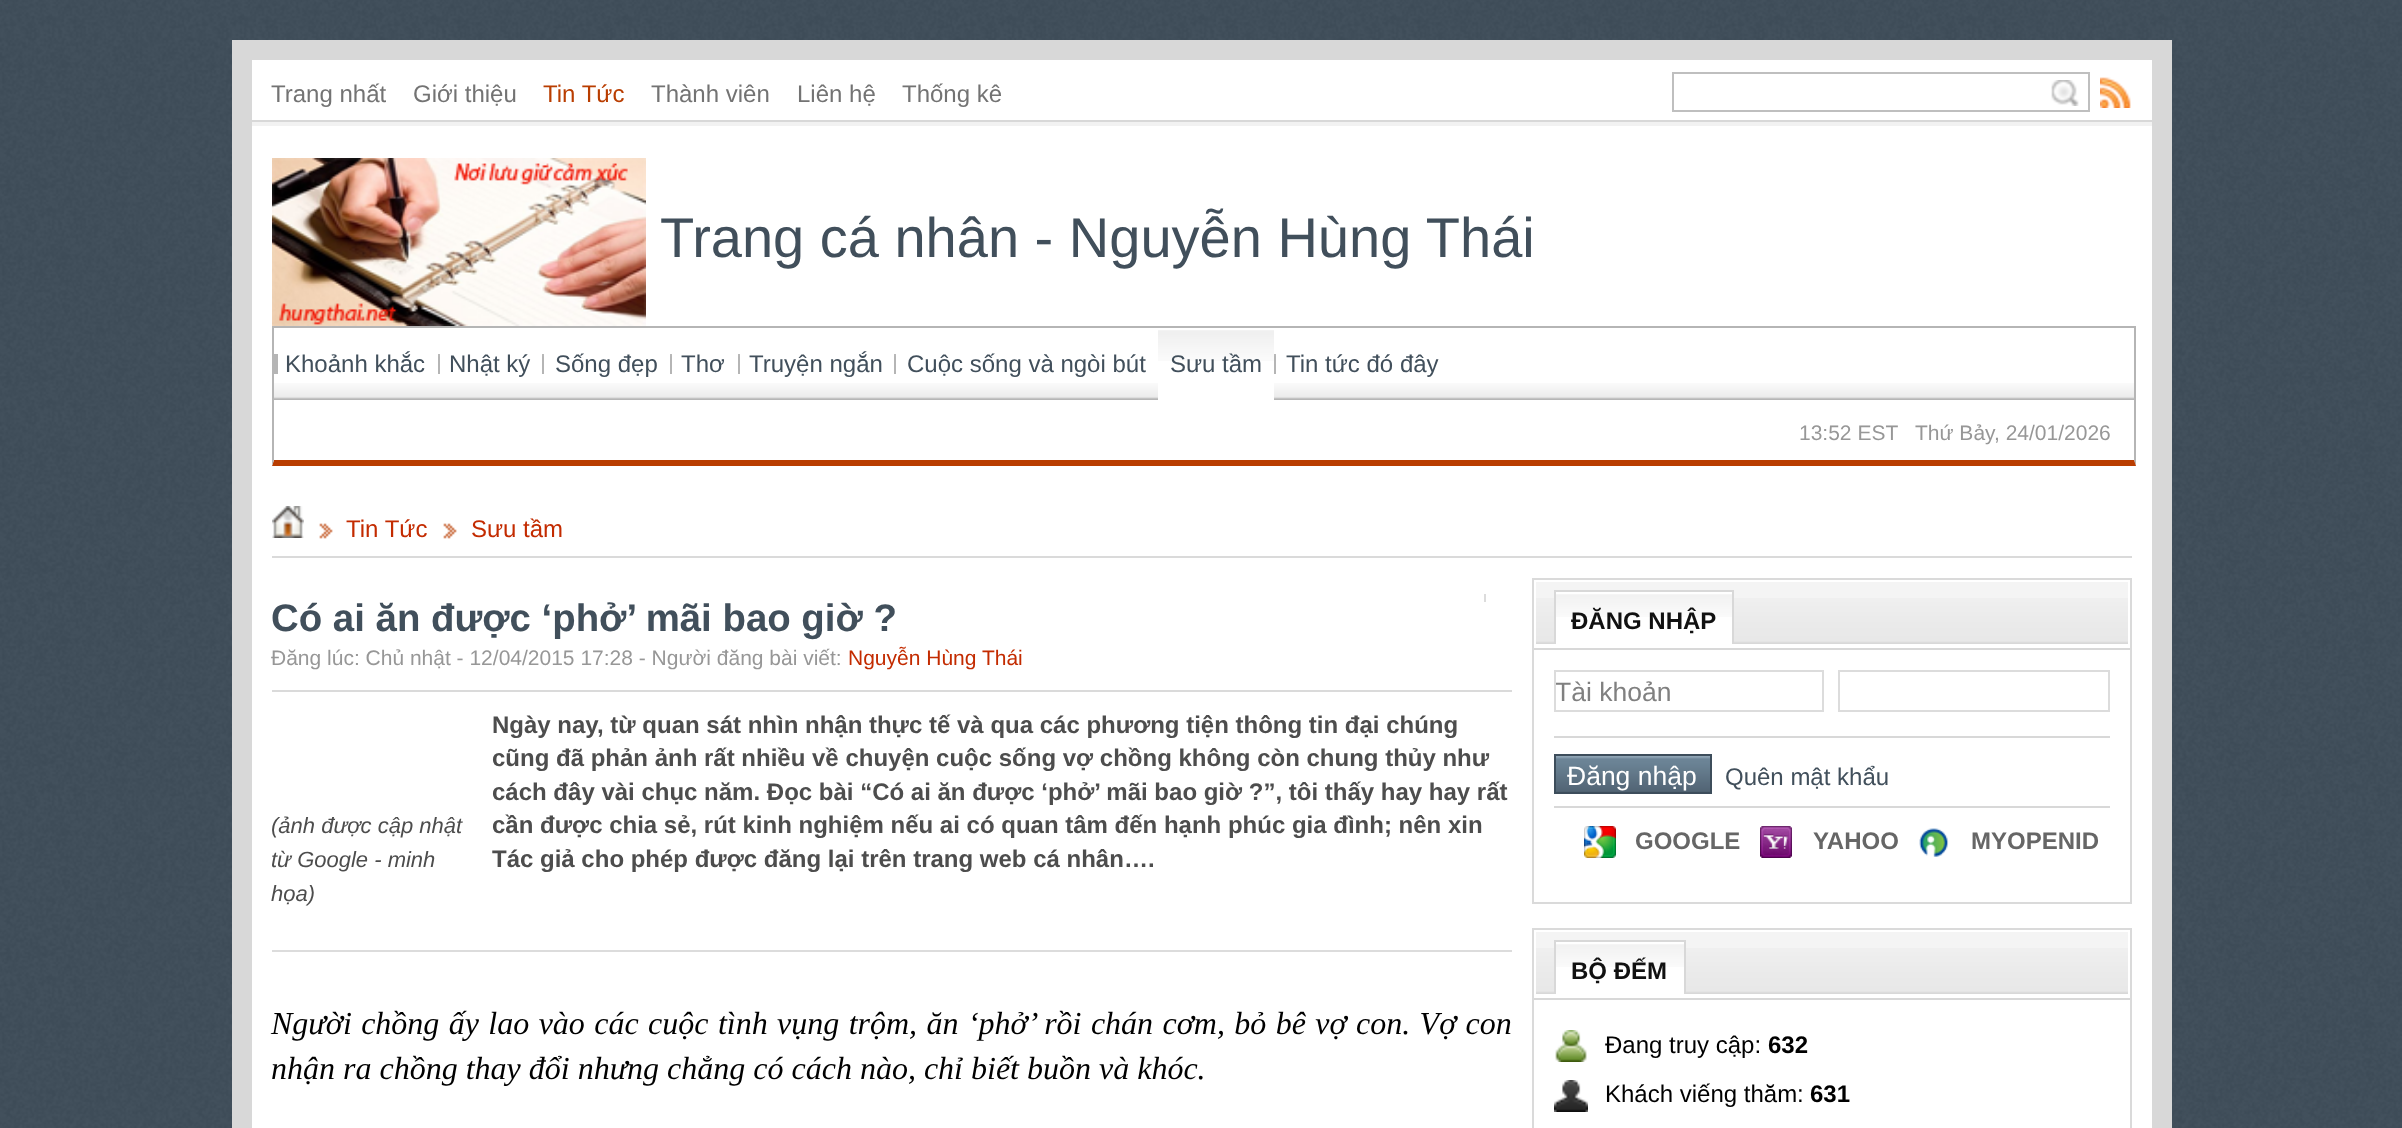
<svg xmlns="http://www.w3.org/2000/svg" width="2402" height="1128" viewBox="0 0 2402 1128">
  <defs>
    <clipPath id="clip1"><rect x="1556" y="676" width="266" height="30"/></clipPath>
  </defs>
  <rect width="100%" height="100%" fill="#ffffff"/>
  <image x="0" y="0" width="2402" height="1128" href="img1.png"/>
  <rect x="242" y="50" width="1920" height="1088" fill="#ffffff" stroke="#d8d8d8" stroke-width="20"/>
  <rect x="252" y="122" width="1900" height="4" fill="#f2f2f2"/>
  <rect x="252" y="120" width="1900" height="2" fill="#d8d8d8"/>
  <text x="271" y="102" font-family="Liberation Sans" font-size="24" fill="#737373">Trang nhất</text>
  <text x="413" y="102" font-family="Liberation Sans" font-size="24" fill="#737373">Giới thiệu</text>
  <text x="543" y="102" font-family="Liberation Sans" font-size="24" fill="#b93d00">Tin Tức</text>
  <text x="651" y="102" font-family="Liberation Sans" font-size="24" fill="#737373">Thành viên</text>
  <text x="797" y="102" font-family="Liberation Sans" font-size="24" fill="#737373">Liên hệ</text>
  <text x="902" y="102" font-family="Liberation Sans" font-size="24" fill="#737373">Thống kê</text>
  <image x="2051" y="80" width="28" height="26" href="img2.png"/>
  <rect x="1673" y="73" width="416" height="38" fill="none" stroke="#bfbfbf" stroke-width="2"/>
  <image x="2100" y="77" width="31" height="31" href="img3.png"/>
  <image x="272" y="158" width="374" height="168" href="img4.png"/>
  <text x="660" y="257" font-family="Liberation Sans" font-size="56" fill="#414f5b">Trang cá nhân - Nguyễn Hùng Thái</text>
  <image x="274" y="383" width="1860" height="17" href="img5.png"/>
  <rect x="272" y="326" width="1864" height="2" fill="#b5b5b5"/>
  <path d="M2136 326V466L2134 460V328Z" fill="#b5b5b5"/>
  <path d="M2136 466H272L274 460H2134Z" fill="#b93d00"/>
  <path d="M272 466V326L274 328V460Z" fill="#b5b5b5"/>
  <rect x="274" y="354" width="4" height="20" fill="#b5b5b5"/>
  <text x="285" y="372" font-family="Liberation Sans" font-size="24" fill="#414f5b">Khoảnh khắc</text>
  <image x="438" y="354" width="2" height="20" href="img6.png"/>
  <text x="449" y="372" font-family="Liberation Sans" font-size="24" fill="#414f5b">Nhật ký</text>
  <image x="542" y="354" width="2" height="20" href="img6.png"/>
  <text x="555" y="372" font-family="Liberation Sans" font-size="24" fill="#414f5b">Sống đẹp</text>
  <image x="670" y="354" width="2" height="20" href="img6.png"/>
  <text x="681" y="372" font-family="Liberation Sans" font-size="24" fill="#414f5b">Thơ</text>
  <image x="738" y="354" width="2" height="20" href="img6.png"/>
  <text x="749" y="372" font-family="Liberation Sans" font-size="24" fill="#414f5b">Truyện ngắn</text>
  <image x="894" y="354" width="2" height="20" href="img6.png"/>
  <text x="907" y="372" font-family="Liberation Sans" font-size="24" fill="#414f5b">Cuộc sống và ngòi bút</text>
  <rect x="1158" y="383" width="116" height="17" fill="#ffffff"/>
  <image x="1158" y="330" width="116" height="31" href="img7.png"/>
  <text x="1170" y="372" font-family="Liberation Sans" font-size="24" fill="#414f5b">Sưu tầm</text>
  <image x="1274" y="354" width="2" height="20" href="img6.png"/>
  <text x="1286" y="372" font-family="Liberation Sans" font-size="24" fill="#414f5b">Tin tức đó đây</text>
  <text x="1799" y="440" font-family="Liberation Sans" font-size="21" fill="#979797" xml:space="preserve">13:52 EST   Thứ Bảy, 24/01/2026</text>
  <rect x="272" y="556" width="1860" height="2" fill="#dadada"/>
  <image x="272" y="506" width="32" height="32" href="img8.png"/>
  <image x="319" y="523" width="14" height="16" href="img9.png"/>
  <text x="346" y="537" font-family="Liberation Sans" font-size="24" fill="#c32b00">Tin Tức</text>
  <image x="443" y="523" width="14" height="16" href="img9.png"/>
  <text x="471" y="537" font-family="Liberation Sans" font-size="24" fill="#c32b00">Sưu tầm</text>
  <rect x="272" y="690" width="1240" height="2" fill="#dadada"/>
  <rect x="1484" y="594" width="2" height="8" fill="#dcdcdc"/>
  <text x="271" y="631" font-family="Liberation Sans" font-size="38.4" font-weight="bold" fill="#414f5b">Có ai ăn được ‘phở’ mãi bao giờ ?</text>
  <text x="271" y="665" font-family="Liberation Sans" font-size="21" fill="#979797">Đăng lúc: Chủ nhật - 12/04/2015 17:28 - Người đăng bài viết:</text>
  <text x="848" y="665" font-family="Liberation Sans" font-size="21" fill="#c32b00">Nguyễn Hùng Thái</text>
  <rect x="272" y="950" width="1240" height="2" fill="#dcdcdc"/>
  <text x="492" y="733" font-family="Liberation Sans" font-size="24" font-weight="bold" fill="#4d4d4d">Ngày nay, từ quan sát nhìn nhận thực tế và qua các phương tiện thông tin đại chúng</text>
  <text x="492" y="766" font-family="Liberation Sans" font-size="24" font-weight="bold" fill="#4d4d4d">cũng đã phản ảnh rất nhiều về chuyện cuộc sống vợ chồng không còn chung thủy như</text>
  <text x="492" y="800" font-family="Liberation Sans" font-size="24" font-weight="bold" fill="#4d4d4d">cách đây vài chục năm. Đọc bài “Có ai ăn được ‘phở’ mãi bao giờ ?”, tôi thấy hay hay rất</text>
  <text x="271" y="833" font-family="Liberation Sans" font-size="22" font-style="italic" fill="#4d4d4d">(ảnh được cập nhật</text>
  <text x="271" y="867" font-family="Liberation Sans" font-size="22" font-style="italic" fill="#4d4d4d">từ Google - minh</text>
  <text x="271" y="901" font-family="Liberation Sans" font-size="22" font-style="italic" fill="#4d4d4d">họa)</text>
  <text x="492" y="833" font-family="Liberation Sans" font-size="24" font-weight="bold" fill="#4d4d4d">cần được chia sẻ, rút kinh nghiệm nếu ai có quan tâm đến hạnh phúc gia đình; nên xin</text>
  <text x="492" y="867" font-family="Liberation Sans" font-size="24" font-weight="bold" fill="#4d4d4d">Tác giả cho phép được đăng lại trên trang web cá nhân….</text>
  <text x="271" y="1034" word-spacing="1.4" font-family="Liberation Serif" font-size="32" font-style="italic" fill="#000000">Người chồng ấy lao vào các cuộc tình vụng trộm, ăn ‘phở’ rồi chán cơm, bỏ bê vợ con. Vợ con</text>
  <text x="271" y="1079" font-family="Liberation Serif" font-size="32" font-style="italic" fill="#000000">nhận ra chồng thay đổi nhưng chẳng có cách nào, chỉ biết buồn và khóc.</text>
  <rect x="1533" y="579" width="598" height="324" fill="none" stroke="#dadada" stroke-width="2"/>
  <rect x="1534" y="648" width="596" height="2" fill="#d8d8d8"/>
  <rect x="1536" y="582" width="592" height="16" fill="#f4f4f4"/>
  <image x="1536" y="598" width="592" height="46" href="img10.png"/>
  <rect x="1556" y="592" width="176" height="52" fill="#ffffff"/>
  <image x="1556" y="594" width="176" height="23" href="img11.png"/>
  <rect x="1554" y="590" width="180" height="2" fill="#d8d8d8"/>
  <rect x="1732" y="590" width="2" height="54" fill="#d8d8d8"/>
  <rect x="1554" y="590" width="2" height="54" fill="#d8d8d8"/>
  <text x="1571" y="629" font-family="Liberation Sans" font-size="24" font-weight="bold" fill="#111111">ĐĂNG NHẬP</text>
  <rect x="1555" y="671" width="268" height="40" fill="none" stroke="#dcdcdc" stroke-width="2"/>
  <g clip-path="url(#clip1)">
    <text x="1555" y="701" font-family="Liberation Sans" font-size="26.5" fill="#808080">Tài khoản</text>
  </g>
  <rect x="1839" y="671" width="270" height="40" fill="none" stroke="#dcdcdc" stroke-width="2"/>
  <rect x="1554" y="736" width="556" height="2" fill="#d8d8d8"/>
  <rect x="1556" y="791" width="154" height="1" fill="#4f6170"/>
  <image x="1556" y="756" width="154" height="35" href="img12.png"/>
  <rect x="1555" y="755" width="156" height="38" fill="none" stroke="#3d4d5b" stroke-width="2"/>
  <text x="1567" y="785" font-family="Liberation Sans" font-size="26.5" fill="#ffffff">Đăng nhập</text>
  <text x="1725" y="785" font-family="Liberation Sans" font-size="24" fill="#414f5b">Quên mật khẩu</text>
  <rect x="1554" y="806" width="556" height="2" fill="#d8d8d8"/>
  <image x="1584" y="826" width="32" height="32" href="img13.png"/>
  <text x="1635" y="849" font-family="Liberation Sans" font-size="24" font-weight="bold" fill="#666666">GOOGLE</text>
  <image x="1760" y="826" width="32" height="32" href="img14.png"/>
  <text x="1813" y="849" font-family="Liberation Sans" font-size="24" font-weight="bold" fill="#666666">YAHOO</text>
  <image x="1919" y="828" width="30" height="29" href="img15.png"/>
  <text x="1971" y="849" font-family="Liberation Sans" font-size="24" font-weight="bold" fill="#666666">MYOPENID</text>
  <rect x="1533" y="929" width="598" height="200" fill="none" stroke="#dadada" stroke-width="2"/>
  <rect x="1534" y="998" width="596" height="2" fill="#d8d8d8"/>
  <rect x="1536" y="932" width="592" height="16" fill="#f4f4f4"/>
  <image x="1536" y="948" width="592" height="46" href="img10.png"/>
  <rect x="1556" y="942" width="128" height="52" fill="#ffffff"/>
  <image x="1556" y="944" width="128" height="23" href="img16.png"/>
  <rect x="1554" y="940" width="132" height="2" fill="#d8d8d8"/>
  <rect x="1684" y="940" width="2" height="54" fill="#d8d8d8"/>
  <rect x="1554" y="940" width="2" height="54" fill="#d8d8d8"/>
  <text x="1571" y="979" font-family="Liberation Sans" font-size="24" font-weight="bold" fill="#111111">BỘ ĐẾM</text>
  <image x="1555" y="1030" width="32" height="32" href="img17.png"/>
  <text x="1605" y="1053" font-family="Liberation Sans" font-size="24" fill="#000000">Đang truy cập:</text>
  <text x="1768" y="1053" font-family="Liberation Sans" font-size="24" font-weight="bold" fill="#000000">632</text>
  <image x="1554" y="1080" width="34" height="32" href="img18.png"/>
  <text x="1605" y="1102" font-family="Liberation Sans" font-size="24" fill="#000000">Khách viếng thăm:</text>
  <text x="1810" y="1102" font-family="Liberation Sans" font-size="24" font-weight="bold" fill="#000000">631</text>
</svg>
